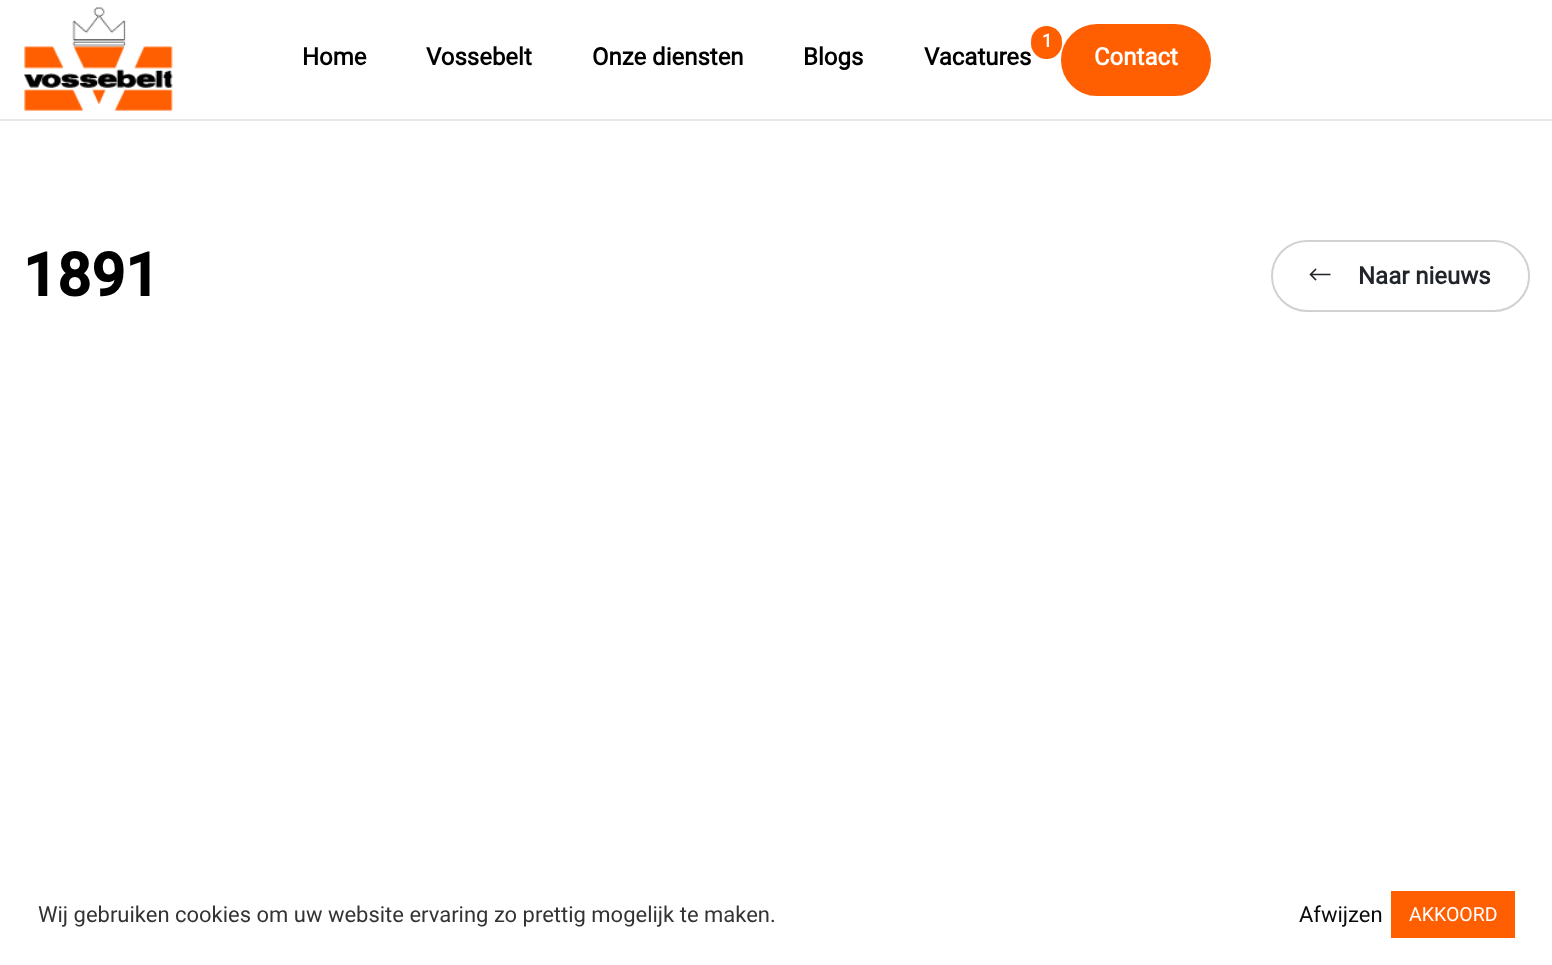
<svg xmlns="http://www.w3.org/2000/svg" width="1552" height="965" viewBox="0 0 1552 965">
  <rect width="100%" height="100%" fill="#ffffff"/>
  <rect x="0" y="119" width="1552" height="2" fill="#e8e8e8"/>
  <image x="24" y="7" width="149" height="104" href="img1.png"/>
  <rect x="1062.5" y="25.5" width="147" height="69" rx="34.5" fill="#ff5f00" stroke="#ff5f00" stroke-width="3"/>
  <rect x="1031" y="26" width="31" height="33" rx="15.5" fill="#ff5f00"/>
  <text x="1042" y="47" font-family="'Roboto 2'" font-size="18" font-weight="bold" fill="#ffffff">1</text>
  <text x="302" y="65" font-family="'Roboto 2'" font-size="24" font-weight="bold" fill="#000000">Home</text>
  <text x="426" y="65" font-family="'Roboto 2'" font-size="24" font-weight="bold" fill="#000000">Vossebelt</text>
  <text x="592" y="65" font-family="'Roboto 2'" font-size="24" font-weight="bold" fill="#000000">Onze diensten</text>
  <text x="803" y="65" font-family="'Roboto 2'" font-size="24" font-weight="bold" fill="#000000">Blogs</text>
  <text x="924" y="65" font-family="'Roboto 2'" font-size="24" font-weight="bold" fill="#000000">Vacatures</text>
  <text x="1094" y="65" font-family="'Roboto 2'" font-size="24" font-weight="bold" fill="#ffffff">Contact</text>
  <text x="23" y="296" font-family="Roboto" font-size="60" font-weight="bold" fill="#000000">1891</text>
  <rect x="1272" y="241" width="257" height="70" rx="35" fill="none" stroke="#d1d1d1" stroke-width="2"/>
  <image x="1309" y="268" width="22" height="13" href="img2.png"/>
  <text x="1358" y="284" font-family="'Roboto 2'" font-size="24" font-weight="bold" fill="#212529">Naar nieuws</text>
  <text x="38" y="922" font-family="Roboto" font-size="22" fill="#333333">Wij gebruiken cookies om uw website ervaring zo prettig mogelijk te maken.</text>
  <text x="1299" y="922" font-family="Roboto" font-size="22" fill="#0a0a0a">Afwijzen</text>
  <rect x="1391" y="891" width="124" height="47" fill="#ff5f00"/>
  <text x="1409" y="921" font-family="Roboto" font-size="19.5" fill="#ffffff">AKKOORD</text>
</svg>
